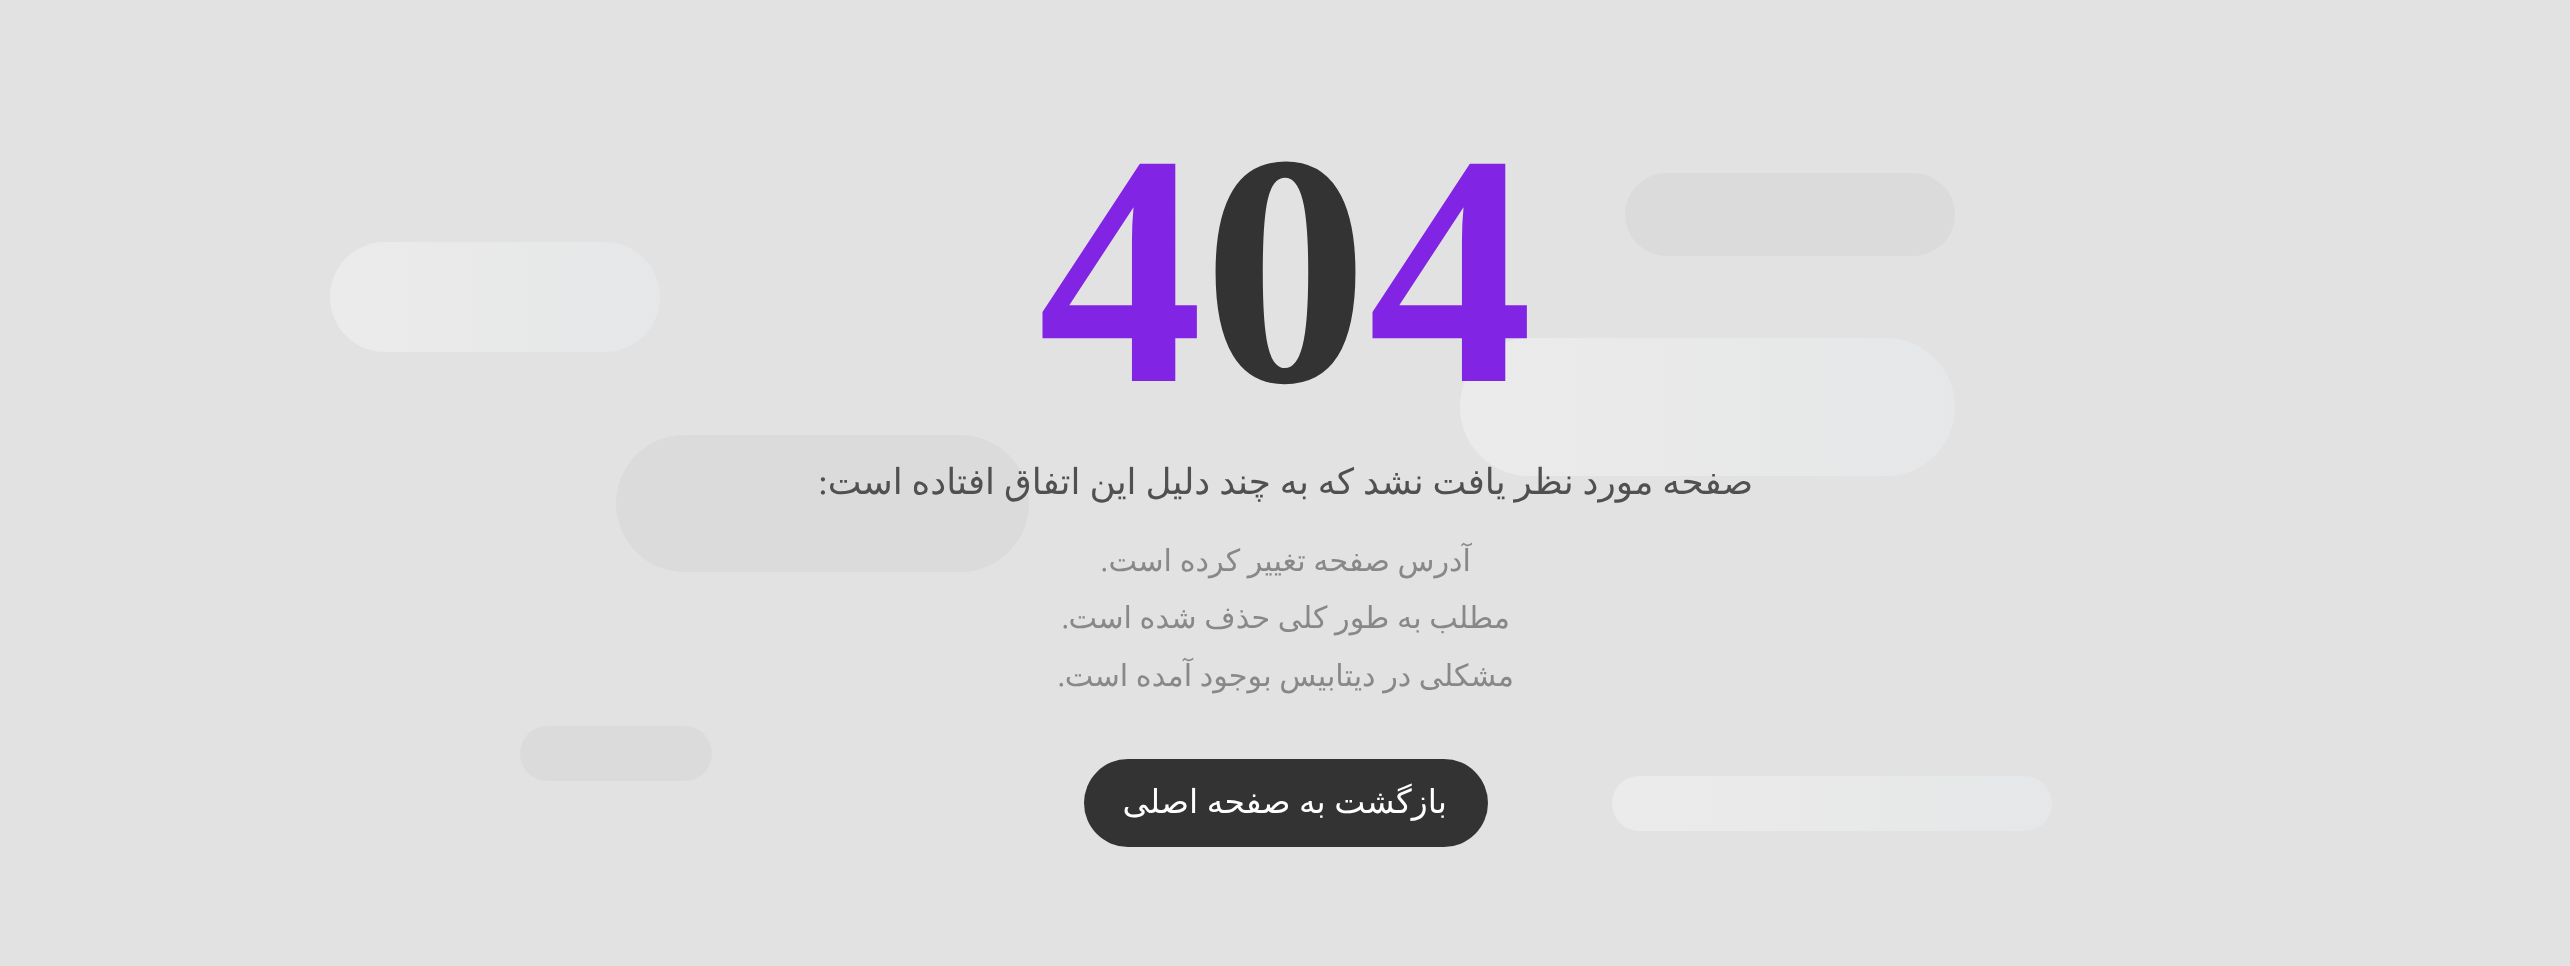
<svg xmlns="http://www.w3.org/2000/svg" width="2570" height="966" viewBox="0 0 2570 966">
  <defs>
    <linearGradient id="g1" gradientUnits="userSpaceOnUse" x1="1460" y1="407" x2="1955" y2="407"><stop offset="0" stop-color="#ebebeb"/><stop offset="1" stop-color="#e6e7e8"/></linearGradient>
    <linearGradient id="g2" gradientUnits="userSpaceOnUse" x1="330" y1="297" x2="660" y2="297"><stop offset="0" stop-color="#ebebeb"/><stop offset="1" stop-color="#e6e7e8"/></linearGradient>
    <linearGradient id="g3" gradientUnits="userSpaceOnUse" x1="1612" y1="803" x2="2052" y2="803"><stop offset="0" stop-color="#ebebeb"/><stop offset="1" stop-color="#e6e7e8"/></linearGradient>
  </defs>
  <rect width="100%" height="100%" fill="#e2e2e2"/>
  <rect x="1460" y="338" width="495" height="138" rx="69" fill="url(#g1)"/>
  <text x="1368" y="381" font-family="Liberation Serif" font-size="330" font-weight="bold" fill="#8224e3">4</text>
  <text x="1203" y="381" font-family="Liberation Serif" font-size="330" font-weight="bold" fill="#333333">0</text>
  <text x="1038" y="381" font-family="Liberation Serif" font-size="330" font-weight="bold" fill="#8224e3">4</text>
  <rect x="1625" y="173" width="330" height="83" rx="41.5" fill="#dbdbdb"/>
  <rect x="616" y="435" width="413" height="137" rx="68.5" fill="#dbdbdb"/>
  <rect x="520" y="726" width="192" height="55" rx="27.5" fill="#dbdbdb"/>
  <rect x="330" y="242" width="330" height="110" rx="55" fill="url(#g2)"/>
  <rect x="1612" y="776" width="440" height="55" rx="27.5" fill="url(#g3)"/>
  <text x="1753" y="494" word-spacing="-2.4" font-family="DejaVu Sans" font-size="35.75" direction="rtl" fill="#505050">صفحه مورد نظر یافت نشد که به چند دلیل این اتفاق افتاده است</text>
  <text x="828" y="494" font-family="Liberation Serif" font-size="35.75" direction="rtl" fill="#505050">:</text>
  <text x="1471" y="571" word-spacing="-2" font-family="DejaVu Sans" font-size="30.25" direction="rtl" fill="#888888">آدرس صفحه تغییر کرده است</text>
  <text x="1108" y="571" font-family="Liberation Serif" font-size="30.25" direction="rtl" fill="#888888">.</text>
  <text x="1510" y="628" word-spacing="-2" font-family="DejaVu Sans" font-size="30.25" direction="rtl" fill="#888888">مطلب به طور کلی حذف شده است</text>
  <text x="1069" y="628" font-family="Liberation Serif" font-size="30.25" direction="rtl" fill="#888888">.</text>
  <text x="1514" y="686" word-spacing="-2" font-family="DejaVu Sans" font-size="30.25" direction="rtl" fill="#888888">مشکلی در دیتابیس بوجود آمده است</text>
  <text x="1065" y="686" font-family="Liberation Serif" font-size="30.25" direction="rtl" fill="#888888">.</text>
  <rect x="1084" y="759" width="404" height="88" rx="44" fill="#333333"/>
  <text x="1447" y="813" word-spacing="-2" font-family="DejaVu Sans" font-size="33" direction="rtl" fill="#ffffff">بازگشت به صفحه اصلی</text>
</svg>
